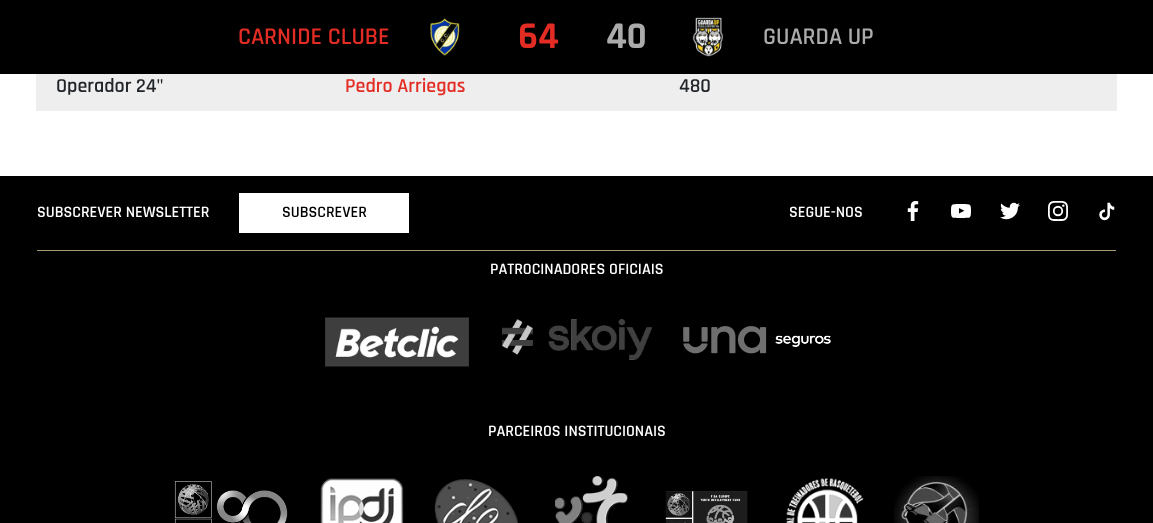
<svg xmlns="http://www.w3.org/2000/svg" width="1153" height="523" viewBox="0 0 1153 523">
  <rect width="100%" height="100%" fill="#ffffff"/>
  <rect x="0" y="0" width="1153" height="74" fill="#000000"/>
  <text x="238" y="44" font-family="Rajdhani" font-size="24" font-weight="600" fill="#e32c23">CARNIDE CLUBE</text>
  <image x="430" y="18" width="30" height="38" href="img1.png"/>
  <text x="518" y="48" font-family="Rajdhani" font-size="38" font-weight="bold" fill="#e32c23">64</text>
  <text x="606" y="48" font-family="Rajdhani" font-size="38" font-weight="bold" fill="#acabab">40</text>
  <image x="692" y="17" width="32" height="40" href="img2.png"/>
  <text x="763" y="44" font-family="Rajdhani" font-size="24" font-weight="600" fill="#acabab">GUARDA UP</text>
  <rect x="36" y="74" width="1081" height="37" fill="#eeeeee"/>
  <text x="56" y="92" font-family="Rajdhani" font-size="20" font-weight="600" fill="#212529">Operador 24"</text>
  <text x="345" y="92" font-family="Rajdhani" font-size="20" font-weight="600" fill="#e32c23">Pedro Arriegas</text>
  <text x="679" y="92" font-family="Rajdhani" font-size="20" font-weight="600" fill="#212529">480</text>
  <rect x="0" y="176" width="1153" height="347" fill="#000000"/>
  <rect x="37" y="250" width="1079" height="1" fill="#a89b71"/>
  <text x="37" y="217" font-family="Rajdhani" font-size="16" font-weight="600" fill="#ffffff">SUBSCREVER NEWSLETTER</text>
  <rect x="239" y="193" width="170" height="40" fill="#ffffff"/>
  <text x="282" y="217" font-family="Rajdhani" font-size="16" font-weight="600" fill="#000000">SUBSCREVER</text>
  <text x="789" y="217" font-family="Rajdhani" font-size="16" font-weight="600" fill="#ffffff">SEGUE-NOS</text>
  <image x="907" y="201" width="12" height="20" href="img3.png"/>
  <image x="951" y="204" width="20" height="14" href="img4.png"/>
  <image x="1000" y="202" width="20" height="18" href="img5.png"/>
  <image x="1048" y="201" width="20" height="20" href="img6.png"/>
  <image x="1099" y="202" width="16" height="19" href="img7.png"/>
  <text x="490" y="274" font-family="Rajdhani" font-size="16" font-weight="600" fill="#ffffff">PATROCINADORES OFICIAIS</text>
  <image x="325" y="317" width="144" height="50" href="img8.png"/>
  <image x="502" y="319" width="150" height="41" href="img9.png"/>
  <image x="683" y="326" width="148" height="28" href="img10.png"/>
  <text x="488" y="436" font-family="Rajdhani" font-size="16" font-weight="600" fill="#ffffff">PARCEIROS INSTITUCIONAIS</text>
  <image x="174" y="481" width="114" height="42" href="img11.png"/>
  <image x="320" y="478" width="84" height="45" href="img12.png"/>
  <image x="434" y="479" width="85" height="44" href="img13.png"/>
  <image x="555" y="476" width="73" height="47" href="img14.png"/>
  <image x="665" y="491" width="83" height="32" href="img15.png"/>
  <image x="786" y="478" width="78" height="45" href="img16.png"/>
  <image x="894" y="476" width="85" height="47" href="img17.png"/>
</svg>
